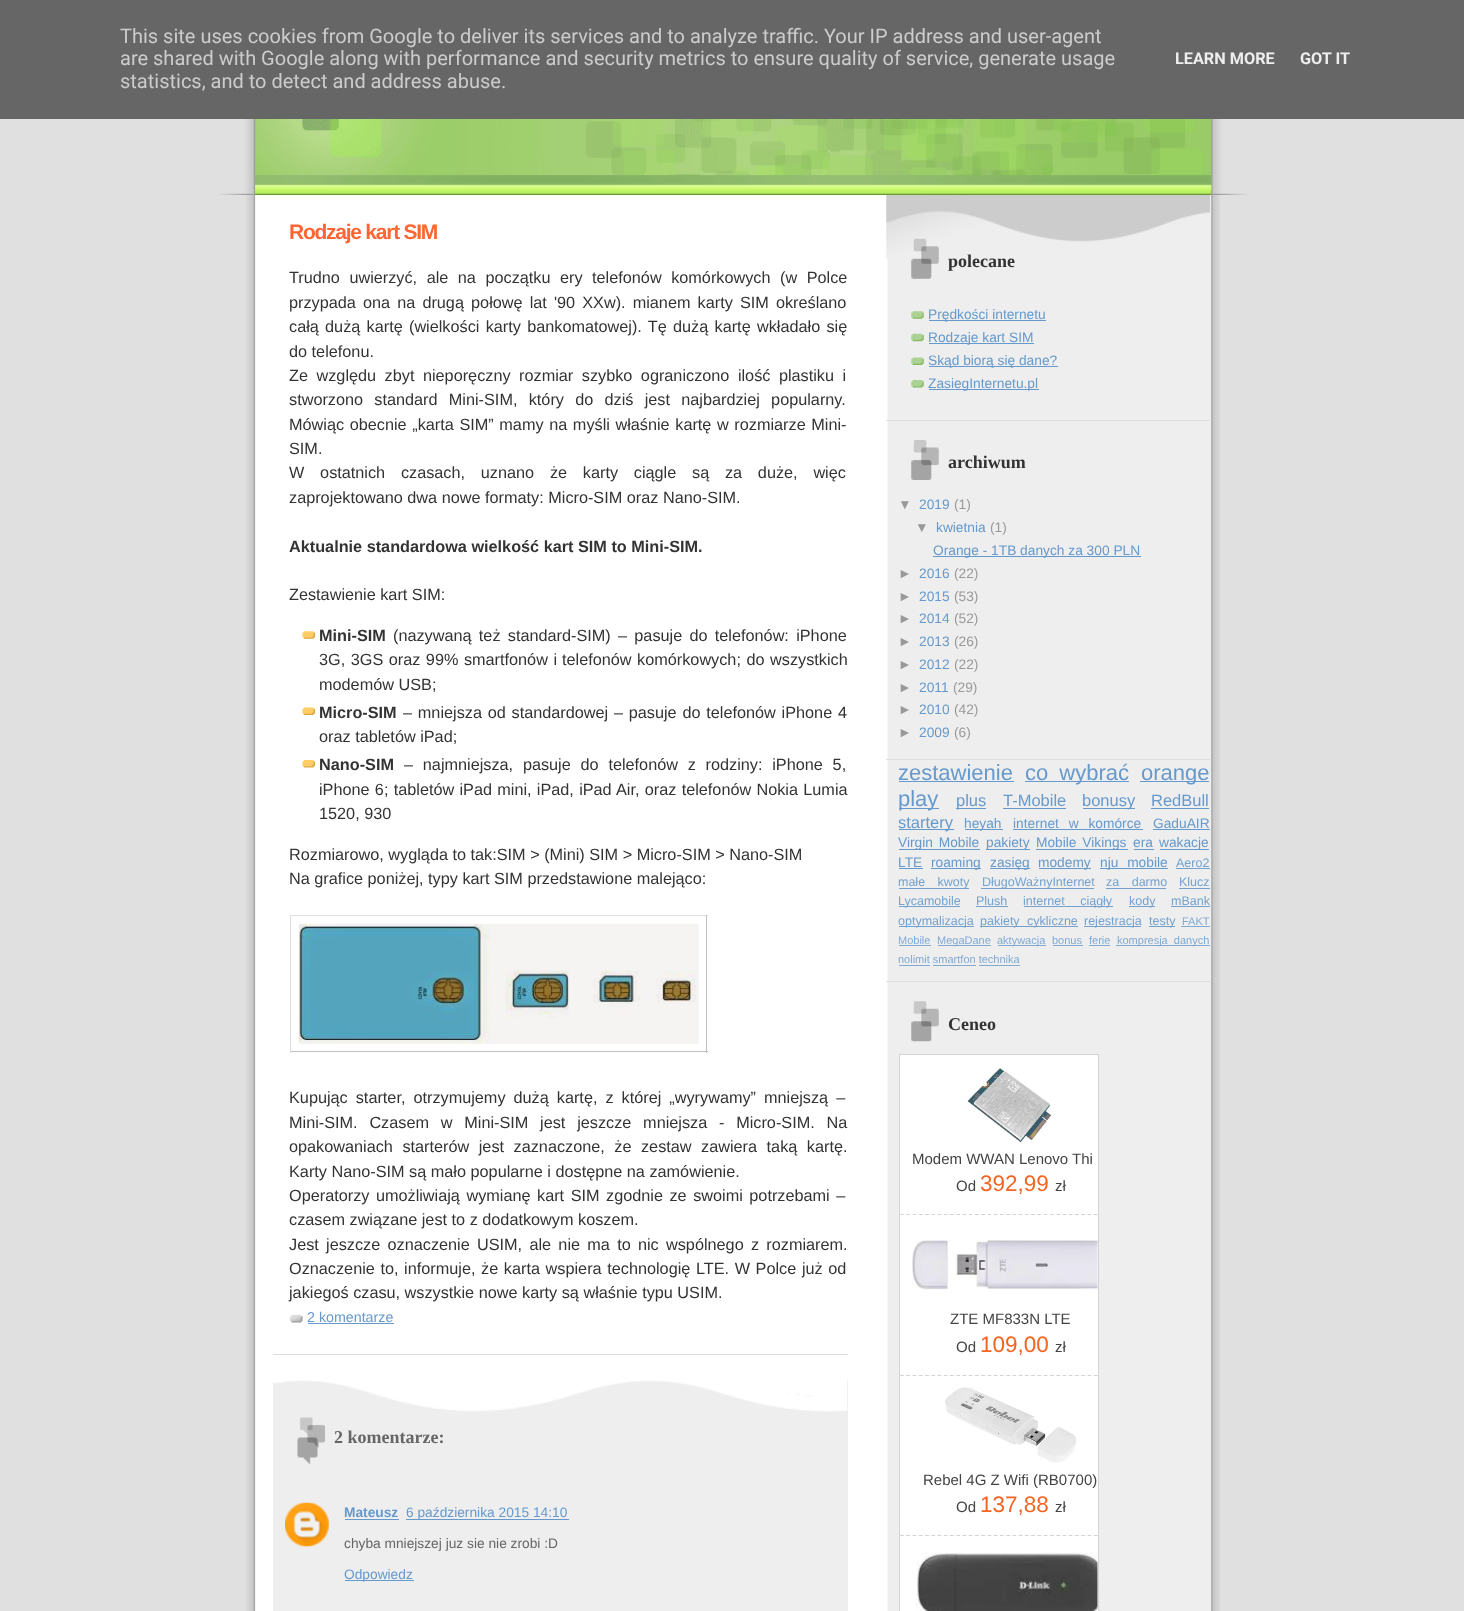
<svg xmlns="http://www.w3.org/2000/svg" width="1464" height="1611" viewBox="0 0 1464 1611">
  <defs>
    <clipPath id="clip1"><rect x="900" y="1055" width="198" height="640"/></clipPath>
  </defs>
  <rect width="100%" height="100%" fill="#e0e0e0"/>
  <rect x="0" y="0" width="1464" height="119" fill="#666666"/>
  <text x="120" y="43" font-family="Roboto" font-size="20" fill="#cccccc">This site uses cookies from Google to deliver its services and to analyze traffic. Your IP address and user-agent</text>
  <text x="120" y="65" font-family="Roboto" font-size="20" fill="#cccccc">are shared with Google along with performance and security metrics to ensure quality of service, generate usage</text>
  <text x="120" y="88" font-family="Roboto" font-size="20" fill="#cccccc">statistics, and to detect and address abuse.</text>
  <text x="1175" y="64" font-family="Roboto" font-size="16.25" font-weight="bold" fill="#eeeeee">LEARN MORE</text>
  <text x="1300" y="64" font-family="Roboto" font-size="16.25" font-weight="bold" fill="#eeeeee">GOT IT</text>
  <image x="246" y="195" width="974" height="1416" href="img1.png"/>
  <image x="243" y="119" width="980" height="75" href="img2.png"/>
  <image x="218" y="175" width="1031" height="20" href="img3.png"/>
  <rect x="273" y="1354" width="575" height="1" fill="#dddddd"/>
  <text x="289" y="239" font-family="Liberation Sans" font-size="21" font-weight="bold" letter-spacing="-1.25" fill="#ff6633">Rodzaje kart SIM</text>
  <text x="289" y="283" word-spacing="5" font-family="Liberation Sans" font-size="16.25" fill="#333333">Trudno uwierzyć, ale na początku ery telefonów komórkowych (w Polce</text>
  <text x="289" y="308" word-spacing="2.6" font-family="Liberation Sans" font-size="16.25" fill="#333333">przypada ona na drugą połowę lat '90 XXw). mianem karty SIM określano</text>
  <text x="289" y="332" word-spacing="1.75" font-family="Liberation Sans" font-size="16.25" fill="#333333">całą dużą kartę (wielkości karty bankomatowej). Tę dużą kartę wkładało się</text>
  <text x="289" y="357" font-family="Liberation Sans" font-size="16.25" fill="#333333">do telefonu.</text>
  <text x="289" y="381" word-spacing="4" font-family="Liberation Sans" font-size="16.25" fill="#333333">Ze względu zbyt nieporęczny rozmiar szybko ograniczono ilość plastiku i</text>
  <text x="289" y="405" word-spacing="6.75" font-family="Liberation Sans" font-size="16.25" fill="#333333">stworzono standard Mini-SIM, który do dziś jest najbardziej popularny.</text>
  <text x="289" y="430" word-spacing="1.1" font-family="Liberation Sans" font-size="16.25" fill="#333333">Mówiąc obecnie „karta SIM” mamy na myśli właśnie kartę w rozmiarze Mini-</text>
  <text x="289" y="454" font-family="Liberation Sans" font-size="16.25" fill="#333333">SIM.</text>
  <text x="289" y="478" word-spacing="11.25" font-family="Liberation Sans" font-size="16.25" fill="#333333">W ostatnich czasach, uznano że karty ciągle są za duże, więc</text>
  <text x="289" y="503" font-family="Liberation Sans" font-size="16.25" fill="#333333">zaprojektowano dwa nowe formaty: Micro-SIM oraz Nano-SIM.</text>
  <text x="289" y="552" font-family="Liberation Sans" font-size="16.25" font-weight="bold" fill="#333333">Aktualnie standardowa wielkość kart SIM to Mini-SIM.</text>
  <text x="289" y="600" font-family="Liberation Sans" font-size="16.25" fill="#333333">Zestawienie kart SIM:</text>
  <image x="302" y="631" width="13" height="8" href="img4.png"/>
  <text x="319" y="641" font-family="Liberation Sans" font-size="16.25" font-weight="bold" fill="#333333">Mini-SIM</text>
  <text x="393" y="641" word-spacing="2.75" font-family="Liberation Sans" font-size="16.25" fill="#333333">(nazywaną też standard-SIM) – pasuje do telefonów: iPhone</text>
  <text x="319" y="665" word-spacing="1" font-family="Liberation Sans" font-size="16.25" fill="#333333">3G, 3GS oraz 99% smartfonów i</text>
  <text x="562" y="665" word-spacing="1" font-family="Liberation Sans" font-size="16.25" fill="#333333">telefonów komórkowych; do wszystkich</text>
  <text x="319" y="690" font-family="Liberation Sans" font-size="16.25" fill="#333333">modemów USB;</text>
  <image x="302" y="707" width="13" height="8" href="img5.png"/>
  <text x="319" y="718" font-family="Liberation Sans" font-size="16.25" font-weight="bold" fill="#333333">Micro-SIM</text>
  <text x="403" y="718" word-spacing="1.25" font-family="Liberation Sans" font-size="16.25" fill="#333333">– mniejsza od standardowej – pasuje do telefonów iPhone 4</text>
  <text x="319" y="742" font-family="Liberation Sans" font-size="16.25" fill="#333333">oraz tabletów iPad;</text>
  <image x="302" y="760" width="13" height="8" href="img6.png"/>
  <text x="319" y="770" font-family="Liberation Sans" font-size="16.25" font-weight="bold" fill="#333333">Nano-SIM</text>
  <text x="404" y="770" word-spacing="5.25" font-family="Liberation Sans" font-size="16.25" fill="#333333">– najmniejsza, pasuje do telefonów z rodziny: iPhone 5,</text>
  <text x="319" y="795" word-spacing="0.75" font-family="Liberation Sans" font-size="16.25" fill="#333333">iPhone 6; tabletów iPad mini, iPad, iPad Air, oraz telefonów Nokia Lumia</text>
  <text x="319" y="819" font-family="Liberation Sans" font-size="16.25" fill="#333333">1520, 930</text>
  <text x="289" y="860" font-family="Liberation Sans" font-size="16.25" fill="#333333">Rozmiarowo, wygląda to tak:SIM &gt; (Mini) SIM &gt; Micro-SIM &gt; Nano-SIM</text>
  <text x="289" y="884" font-family="Liberation Sans" font-size="16.25" fill="#333333">Na grafice poniżej, typy kart SIM przedstawione malejąco:</text>
  <rect x="290" y="915" width="418" height="1" fill="#dddddd"/>
  <rect x="706" y="915" width="1" height="138" fill="#c0c0c0"/>
  <rect x="290" y="1051" width="418" height="1" fill="#c0c0c0"/>
  <rect x="290" y="915" width="1" height="138" fill="#dddddd"/>
  <image x="298" y="923" width="401" height="121" href="img7.png"/>
  <text x="289" y="1103" word-spacing="3.5" font-family="Liberation Sans" font-size="16.25" fill="#333333">Kupując starter, otrzymujemy dużą kartę, z której „wyrywamy” mniejszą –</text>
  <text x="289" y="1128" word-spacing="7.25" font-family="Liberation Sans" font-size="16.25" fill="#333333">Mini-SIM. Czasem w Mini-SIM jest jeszcze mniejsza - Micro-SIM. Na</text>
  <text x="289" y="1152" word-spacing="5" font-family="Liberation Sans" font-size="16.25" fill="#333333">opakowaniach starterów jest zaznaczone, że zestaw zawiera taką kartę.</text>
  <text x="289" y="1177" font-family="Liberation Sans" font-size="16.25" fill="#333333">Karty Nano-SIM są mało popularne i dostępne na zamówienie.</text>
  <text x="289" y="1201" word-spacing="2" font-family="Liberation Sans" font-size="16.25" fill="#333333">Operatorzy umożliwiają wymianę kart SIM zgodnie ze swoimi potrzebami –</text>
  <text x="289" y="1225" font-family="Liberation Sans" font-size="16.25" fill="#333333">czasem związane jest to z dodatkowym koszem.</text>
  <text x="289" y="1250" word-spacing="2.75" font-family="Liberation Sans" font-size="16.25" fill="#333333">Jest jeszcze oznaczenie USIM, ale nie ma to nic wspólnego z rozmiarem.</text>
  <text x="289" y="1274" word-spacing="1.1" font-family="Liberation Sans" font-size="16.25" fill="#333333">Oznaczenie to, informuje, że karta wspiera technologię LTE. W Polce już od</text>
  <text x="289" y="1298" font-family="Liberation Sans" font-size="16.25" fill="#333333">jakiegoś czasu, wszystkie nowe karty są właśnie typu USIM.</text>
  <image x="290" y="1315" width="13" height="8" href="img8.png"/>
  <text x="307" y="1322" font-family="Liberation Sans" font-size="14.25" fill="#6699cc">2 komentarze</text>
  <rect x="308" y="1323" width="86" height="1" fill="#6699cc"/>
  <rect x="273" y="1380" width="575" height="231" fill="#eeeeee"/>
  <image x="272" y="1380" width="576" height="32" href="img9.png"/>
  <image x="297" y="1417" width="28" height="47" href="img10.png"/>
  <text x="334" y="1443" font-family="Liberation Serif" font-size="18" font-weight="bold" fill="#666666">2 komentarze:</text>
  <image x="285" y="1502" width="44" height="45" href="img11.png"/>
  <text x="344" y="1517" font-family="Liberation Sans" font-size="13.75" font-weight="bold" fill="#6699cc">Mateusz</text>
  <rect x="345" y="1519" width="54" height="1" fill="#6699cc"/>
  <rect x="406" y="1519" width="163" height="1" fill="#6699cc"/>
  <text x="406" y="1517" font-family="Liberation Sans" font-size="13.75" fill="#6699cc">6 października 2015 14:10</text>
  <text x="344" y="1548" font-family="Liberation Sans" font-size="13.75" fill="#666666">chyba mniejszej juz sie nie zrobi :D</text>
  <rect x="345" y="1580" width="69" height="1" fill="#6699cc"/>
  <text x="344" y="1579" font-family="Liberation Sans" font-size="13.75" fill="#6699cc">Odpowiedz</text>
  <image x="886" y="195" width="324" height="64" href="img12.png"/>
  <rect x="886" y="420" width="324" height="1" fill="#dddddd"/>
  <image x="911" y="238" width="28" height="41" href="img13.png"/>
  <text x="948" y="267" font-family="Liberation Serif" font-size="18" font-weight="bold" fill="#333333">polecane</text>
  <image x="911" y="311" width="13" height="8" href="img14.png"/>
  <rect x="929" y="320" width="117" height="1" fill="#6699cc"/>
  <text x="928" y="319" font-family="Liberation Sans" font-size="13.75" fill="#6699cc">Prędkości internetu</text>
  <image x="911" y="333" width="13" height="9" href="img15.png"/>
  <rect x="929" y="343" width="105" height="1" fill="#6699cc"/>
  <text x="928" y="342" font-family="Liberation Sans" font-size="13.75" fill="#6699cc">Rodzaje kart SIM</text>
  <image x="911" y="357" width="13" height="8" href="img16.png"/>
  <rect x="929" y="366" width="129" height="1" fill="#6699cc"/>
  <text x="928" y="365" font-family="Liberation Sans" font-size="13.75" fill="#6699cc">Skąd biorą się dane?</text>
  <image x="911" y="380" width="13" height="8" href="img17.png"/>
  <rect x="929" y="389" width="110" height="1" fill="#6699cc"/>
  <text x="928" y="388" font-family="Liberation Sans" font-size="13.75" fill="#6699cc">ZasiegInternetu.pl</text>
  <rect x="886" y="759" width="324" height="1" fill="#dddddd"/>
  <image x="911" y="440" width="28" height="40" href="img18.png"/>
  <text x="948" y="468" font-family="Liberation Serif" font-size="18" font-weight="bold" fill="#333333">archiwum</text>
  <text x="898" y="509" font-family="Liberation Sans" font-size="13.75" fill="#999999">▼</text>
  <text x="919" y="509" font-family="Liberation Sans" font-size="13.75" fill="#6699cc">2019</text>
  <text x="954" y="509" font-family="Liberation Sans" font-size="13.75" fill="#999999">(1)</text>
  <text x="915" y="532" font-family="Liberation Sans" font-size="13.75" fill="#999999">▼</text>
  <text x="936" y="532" font-family="Liberation Sans" font-size="13.75" fill="#6699cc">kwietnia</text>
  <text x="990" y="532" font-family="Liberation Sans" font-size="13.75" fill="#999999">(1)</text>
  <rect x="933" y="556" width="208" height="1" fill="#6699cc"/>
  <text x="933" y="555" font-family="Liberation Sans" font-size="13.75" fill="#6699cc">Orange - 1TB danych za 300 PLN</text>
  <text x="898" y="578" font-family="Liberation Sans" font-size="13.75" fill="#999999">►</text>
  <text x="919" y="578" font-family="Liberation Sans" font-size="13.75" fill="#6699cc">2016</text>
  <text x="954" y="578" font-family="Liberation Sans" font-size="13.75" fill="#999999">(22)</text>
  <text x="898" y="601" font-family="Liberation Sans" font-size="13.75" fill="#999999">►</text>
  <text x="919" y="601" font-family="Liberation Sans" font-size="13.75" fill="#6699cc">2015</text>
  <text x="954" y="601" font-family="Liberation Sans" font-size="13.75" fill="#999999">(53)</text>
  <text x="898" y="623" font-family="Liberation Sans" font-size="13.75" fill="#999999">►</text>
  <text x="919" y="623" font-family="Liberation Sans" font-size="13.75" fill="#6699cc">2014</text>
  <text x="954" y="623" font-family="Liberation Sans" font-size="13.75" fill="#999999">(52)</text>
  <text x="898" y="646" font-family="Liberation Sans" font-size="13.75" fill="#999999">►</text>
  <text x="919" y="646" font-family="Liberation Sans" font-size="13.75" fill="#6699cc">2013</text>
  <text x="954" y="646" font-family="Liberation Sans" font-size="13.75" fill="#999999">(26)</text>
  <text x="898" y="669" font-family="Liberation Sans" font-size="13.75" fill="#999999">►</text>
  <text x="919" y="669" font-family="Liberation Sans" font-size="13.75" fill="#6699cc">2012</text>
  <text x="954" y="669" font-family="Liberation Sans" font-size="13.75" fill="#999999">(22)</text>
  <text x="898" y="692" font-family="Liberation Sans" font-size="13.75" fill="#999999">►</text>
  <text x="919" y="692" font-family="Liberation Sans" font-size="13.75" fill="#6699cc">2011</text>
  <text x="953" y="692" font-family="Liberation Sans" font-size="13.75" fill="#999999">(29)</text>
  <text x="898" y="714" font-family="Liberation Sans" font-size="13.75" fill="#999999">►</text>
  <text x="919" y="714" font-family="Liberation Sans" font-size="13.75" fill="#6699cc">2010</text>
  <text x="954" y="714" font-family="Liberation Sans" font-size="13.75" fill="#999999">(42)</text>
  <text x="898" y="737" font-family="Liberation Sans" font-size="13.75" fill="#999999">►</text>
  <text x="919" y="737" font-family="Liberation Sans" font-size="13.75" fill="#6699cc">2009</text>
  <text x="954" y="737" font-family="Liberation Sans" font-size="13.75" fill="#999999">(6)</text>
  <rect x="886" y="981" width="324" height="1" fill="#dddddd"/>
  <text x="898" y="780" font-family="Liberation Sans" font-size="22" fill="#6699cc">zestawienie</text>
  <rect x="899" y="781" width="115" height="1" fill="#6699cc"/>
  <rect x="1025" y="781" width="104" height="1" fill="#6699cc"/>
  <text x="1025" y="780" word-spacing="5" font-family="Liberation Sans" font-size="22" fill="#6699cc">co wybrać</text>
  <rect x="1140" y="781" width="69" height="1" fill="#6699cc"/>
  <text x="1141" y="780" font-family="Liberation Sans" font-size="22" fill="#6699cc">orange</text>
  <rect x="899" y="808" width="40" height="1" fill="#6699cc"/>
  <text x="898" y="806" font-family="Liberation Sans" font-size="22" fill="#6699cc">play</text>
  <rect x="956" y="808" width="30" height="1" fill="#6699cc"/>
  <text x="956" y="806" font-family="Liberation Sans" font-size="16.5" fill="#6699cc">plus</text>
  <text x="1003" y="806" font-family="Liberation Sans" font-size="16.5" fill="#6699cc">T-Mobile</text>
  <rect x="1003" y="808" width="63" height="1" fill="#6699cc"/>
  <rect x="1083" y="808" width="52" height="1" fill="#6699cc"/>
  <text x="1082" y="806" font-family="Liberation Sans" font-size="16.5" fill="#6699cc">bonusy</text>
  <text x="1151" y="806" font-family="Liberation Sans" font-size="16.5" fill="#6699cc">RedBull</text>
  <rect x="1151" y="808" width="58" height="1" fill="#6699cc"/>
  <rect x="899" y="829" width="55" height="1" fill="#6699cc"/>
  <text x="898" y="828" font-family="Liberation Sans" font-size="16.5" fill="#6699cc">startery</text>
  <rect x="965" y="829" width="38" height="1" fill="#6699cc"/>
  <text x="964" y="828" font-family="Liberation Sans" font-size="13.75" fill="#6699cc">heyah</text>
  <text x="1013" y="828" word-spacing="6" font-family="Liberation Sans" font-size="13.75" fill="#6699cc">internet w komórce</text>
  <rect x="1013" y="829" width="130" height="1" fill="#6699cc"/>
  <text x="1153" y="828" font-family="Liberation Sans" font-size="13.75" fill="#6699cc">GaduAIR</text>
  <rect x="1153" y="829" width="57" height="1" fill="#6699cc"/>
  <rect x="899" y="849" width="81" height="1" fill="#6699cc"/>
  <text x="898" y="847" word-spacing="2" font-family="Liberation Sans" font-size="13.75" fill="#6699cc">Virgin Mobile</text>
  <rect x="986" y="849" width="44" height="1" fill="#6699cc"/>
  <text x="986" y="847" font-family="Liberation Sans" font-size="13.75" fill="#6699cc">pakiety</text>
  <rect x="1036" y="849" width="92" height="1" fill="#6699cc"/>
  <text x="1036" y="847" word-spacing="2" font-family="Liberation Sans" font-size="13.75" fill="#6699cc">Mobile Vikings</text>
  <text x="1133" y="847" font-family="Liberation Sans" font-size="13.75" fill="#6699cc">era</text>
  <rect x="1134" y="849" width="20" height="1" fill="#6699cc"/>
  <rect x="1160" y="849" width="49" height="1" fill="#6699cc"/>
  <text x="1159" y="847" font-family="Liberation Sans" font-size="13.75" fill="#6699cc">wakacje</text>
  <text x="898" y="867" font-family="Liberation Sans" font-size="13.75" fill="#6699cc">LTE</text>
  <rect x="899" y="868" width="24" height="1" fill="#6699cc"/>
  <rect x="931" y="868" width="50" height="1" fill="#6699cc"/>
  <text x="931" y="867" font-family="Liberation Sans" font-size="13.75" fill="#6699cc">roaming</text>
  <rect x="990" y="868" width="40" height="1" fill="#6699cc"/>
  <text x="990" y="867" font-family="Liberation Sans" font-size="13.75" fill="#6699cc">zasięg</text>
  <rect x="1039" y="868" width="52" height="1" fill="#6699cc"/>
  <text x="1038" y="867" font-family="Liberation Sans" font-size="13.75" fill="#6699cc">modemy</text>
  <rect x="1100" y="868" width="68" height="1" fill="#6699cc"/>
  <text x="1100" y="867" word-spacing="5" font-family="Liberation Sans" font-size="13.75" fill="#6699cc">nju mobile</text>
  <text x="1176" y="867" font-family="Liberation Sans" font-size="12.5" fill="#74a2cf">Aero2</text>
  <rect x="1176" y="868" width="34" height="1" fill="#74a2cf"/>
  <rect x="899" y="888" width="70" height="1" fill="#74a2cf"/>
  <text x="898" y="886" word-spacing="9" font-family="Liberation Sans" font-size="12.5" fill="#74a2cf">małe kwoty</text>
  <rect x="981" y="888" width="113" height="1" fill="#74a2cf"/>
  <text x="982" y="886" font-family="Liberation Sans" font-size="12.5" fill="#74a2cf">DługoWażnyInternet</text>
  <text x="1106" y="886" word-spacing="9" font-family="Liberation Sans" font-size="12.5" fill="#74a2cf">za darmo</text>
  <rect x="1106" y="888" width="60" height="1" fill="#74a2cf"/>
  <text x="1179" y="886" font-family="Liberation Sans" font-size="12.5" fill="#74a2cf">Klucz</text>
  <rect x="1179" y="888" width="31" height="1" fill="#74a2cf"/>
  <rect x="899" y="906" width="61" height="1" fill="#74a2cf"/>
  <text x="898" y="905" font-family="Liberation Sans" font-size="12.5" fill="#74a2cf">Lycamobile</text>
  <text x="976" y="905" font-family="Liberation Sans" font-size="12.5" fill="#74a2cf">Plush</text>
  <rect x="976" y="906" width="32" height="1" fill="#74a2cf"/>
  <rect x="1024" y="906" width="89" height="1" fill="#74a2cf"/>
  <text x="1023" y="905" word-spacing="12" font-family="Liberation Sans" font-size="12.5" fill="#74a2cf">internet ciągły</text>
  <rect x="1129" y="906" width="26" height="1" fill="#74a2cf"/>
  <text x="1129" y="905" font-family="Liberation Sans" font-size="12.5" fill="#74a2cf">kody</text>
  <text x="1171" y="905" font-family="Liberation Sans" font-size="12.5" fill="#74a2cf">mBank</text>
  <rect x="1171" y="906" width="39" height="1" fill="#74a2cf"/>
  <rect x="899" y="926" width="75" height="1" fill="#74a2cf"/>
  <text x="898" y="925" font-family="Liberation Sans" font-size="12.5" fill="#74a2cf">optymalizacja</text>
  <rect x="980" y="926" width="98" height="1" fill="#74a2cf"/>
  <text x="980" y="925" word-spacing="4" font-family="Liberation Sans" font-size="12.5" fill="#74a2cf">pakiety cykliczne</text>
  <rect x="1084" y="926" width="57" height="1" fill="#74a2cf"/>
  <text x="1084" y="925" font-family="Liberation Sans" font-size="12.5" fill="#74a2cf">rejestracja</text>
  <rect x="1149" y="926" width="26" height="1" fill="#74a2cf"/>
  <text x="1149" y="925" font-family="Liberation Sans" font-size="12.5" fill="#74a2cf">testy</text>
  <text x="1182" y="925" font-family="Liberation Sans" font-size="11" fill="#81aad3">FAKT</text>
  <rect x="1181" y="926" width="29" height="1" fill="#81aad3"/>
  <text x="898" y="944" font-family="Liberation Sans" font-size="11" fill="#81aad3">Mobile</text>
  <rect x="899" y="945" width="32" height="1" fill="#81aad3"/>
  <rect x="938" y="945" width="53" height="1" fill="#81aad3"/>
  <text x="937" y="944" font-family="Liberation Sans" font-size="11" fill="#81aad3">MegaDane</text>
  <rect x="998" y="945" width="48" height="1" fill="#81aad3"/>
  <text x="997" y="944" font-family="Liberation Sans" font-size="11" fill="#81aad3">aktywacja</text>
  <text x="1052" y="944" font-family="Liberation Sans" font-size="11" fill="#81aad3">bonus</text>
  <rect x="1053" y="945" width="30" height="1" fill="#81aad3"/>
  <text x="1089" y="944" font-family="Liberation Sans" font-size="11" fill="#81aad3">ferie</text>
  <rect x="1089" y="945" width="21" height="1" fill="#81aad3"/>
  <rect x="1116" y="945" width="94" height="1" fill="#81aad3"/>
  <text x="1117" y="944" word-spacing="3" font-family="Liberation Sans" font-size="11" fill="#81aad3">kompresja danych</text>
  <text x="898" y="963" font-family="Liberation Sans" font-size="11" fill="#81aad3">nolimit smartfon technika</text>
  <rect x="899" y="965" width="31" height="1" fill="#81aad3"/>
  <rect x="933" y="965" width="43" height="1" fill="#81aad3"/>
  <rect x="979" y="965" width="41" height="1" fill="#81aad3"/>
  <image x="911" y="1001" width="28" height="41" href="img19.png"/>
  <text x="948" y="1030" font-family="Liberation Serif" font-size="18" font-weight="bold" fill="#333333">Ceneo</text>
  <rect x="899.5" y="1054.5" width="199" height="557" fill="#ffffff" stroke="#d1d3d4"/>
  <image x="967" y="1067" width="85" height="76" href="img20.png"/>
  <text x="912" y="1164" font-family="Liberation Sans" font-size="15" fill="#444444">Modem WWAN Lenovo Thi</text>
  <text x="956" y="1191" font-family="Liberation Sans" font-size="15" fill="#444444">Od</text>
  <text x="980" y="1191" font-family="Liberation Sans" font-size="22.5" fill="#f26522">392,99</text>
  <text x="1055" y="1191" font-family="Liberation Sans" font-size="15" fill="#444444">zł</text>
  <g clip-path="url(#clip1)">
    <path d="M900 1214.5H1122.5" fill="none" stroke="#d1d3d4" stroke-width="1.2" stroke-dasharray="3.75 2.5"/>
  </g>
  <image x="912" y="1240" width="186" height="50" href="img21.png"/>
  <text x="950" y="1324" font-family="Liberation Sans" font-size="15" fill="#444444">ZTE MF833N LTE</text>
  <text x="956" y="1352" font-family="Liberation Sans" font-size="15" fill="#444444">Od</text>
  <text x="980" y="1352" font-family="Liberation Sans" font-size="22.5" fill="#f26522">109,00</text>
  <text x="1055" y="1352" font-family="Liberation Sans" font-size="15" fill="#444444">zł</text>
  <g clip-path="url(#clip1)">
    <path d="M900 1375.5H1122.5" fill="none" stroke="#d1d3d4" stroke-width="1.2" stroke-dasharray="3.75 2.5"/>
  </g>
  <image x="945" y="1387" width="132" height="76" href="img22.png"/>
  <text x="923" y="1485" font-family="Liberation Sans" font-size="15" fill="#444444">Rebel 4G Z Wifi (RB0700)</text>
  <text x="956" y="1512" font-family="Liberation Sans" font-size="15" fill="#444444">Od</text>
  <text x="980" y="1512" font-family="Liberation Sans" font-size="22.5" fill="#f26522">137,88</text>
  <text x="1055" y="1512" font-family="Liberation Sans" font-size="15" fill="#444444">zł</text>
  <g clip-path="url(#clip1)">
    <path d="M900 1535.5H1122.5" fill="none" stroke="#d1d3d4" stroke-width="1.2" stroke-dasharray="3.75 2.5"/>
  </g>
  <image x="916" y="1552" width="182" height="59" href="img23.png"/>
</svg>
